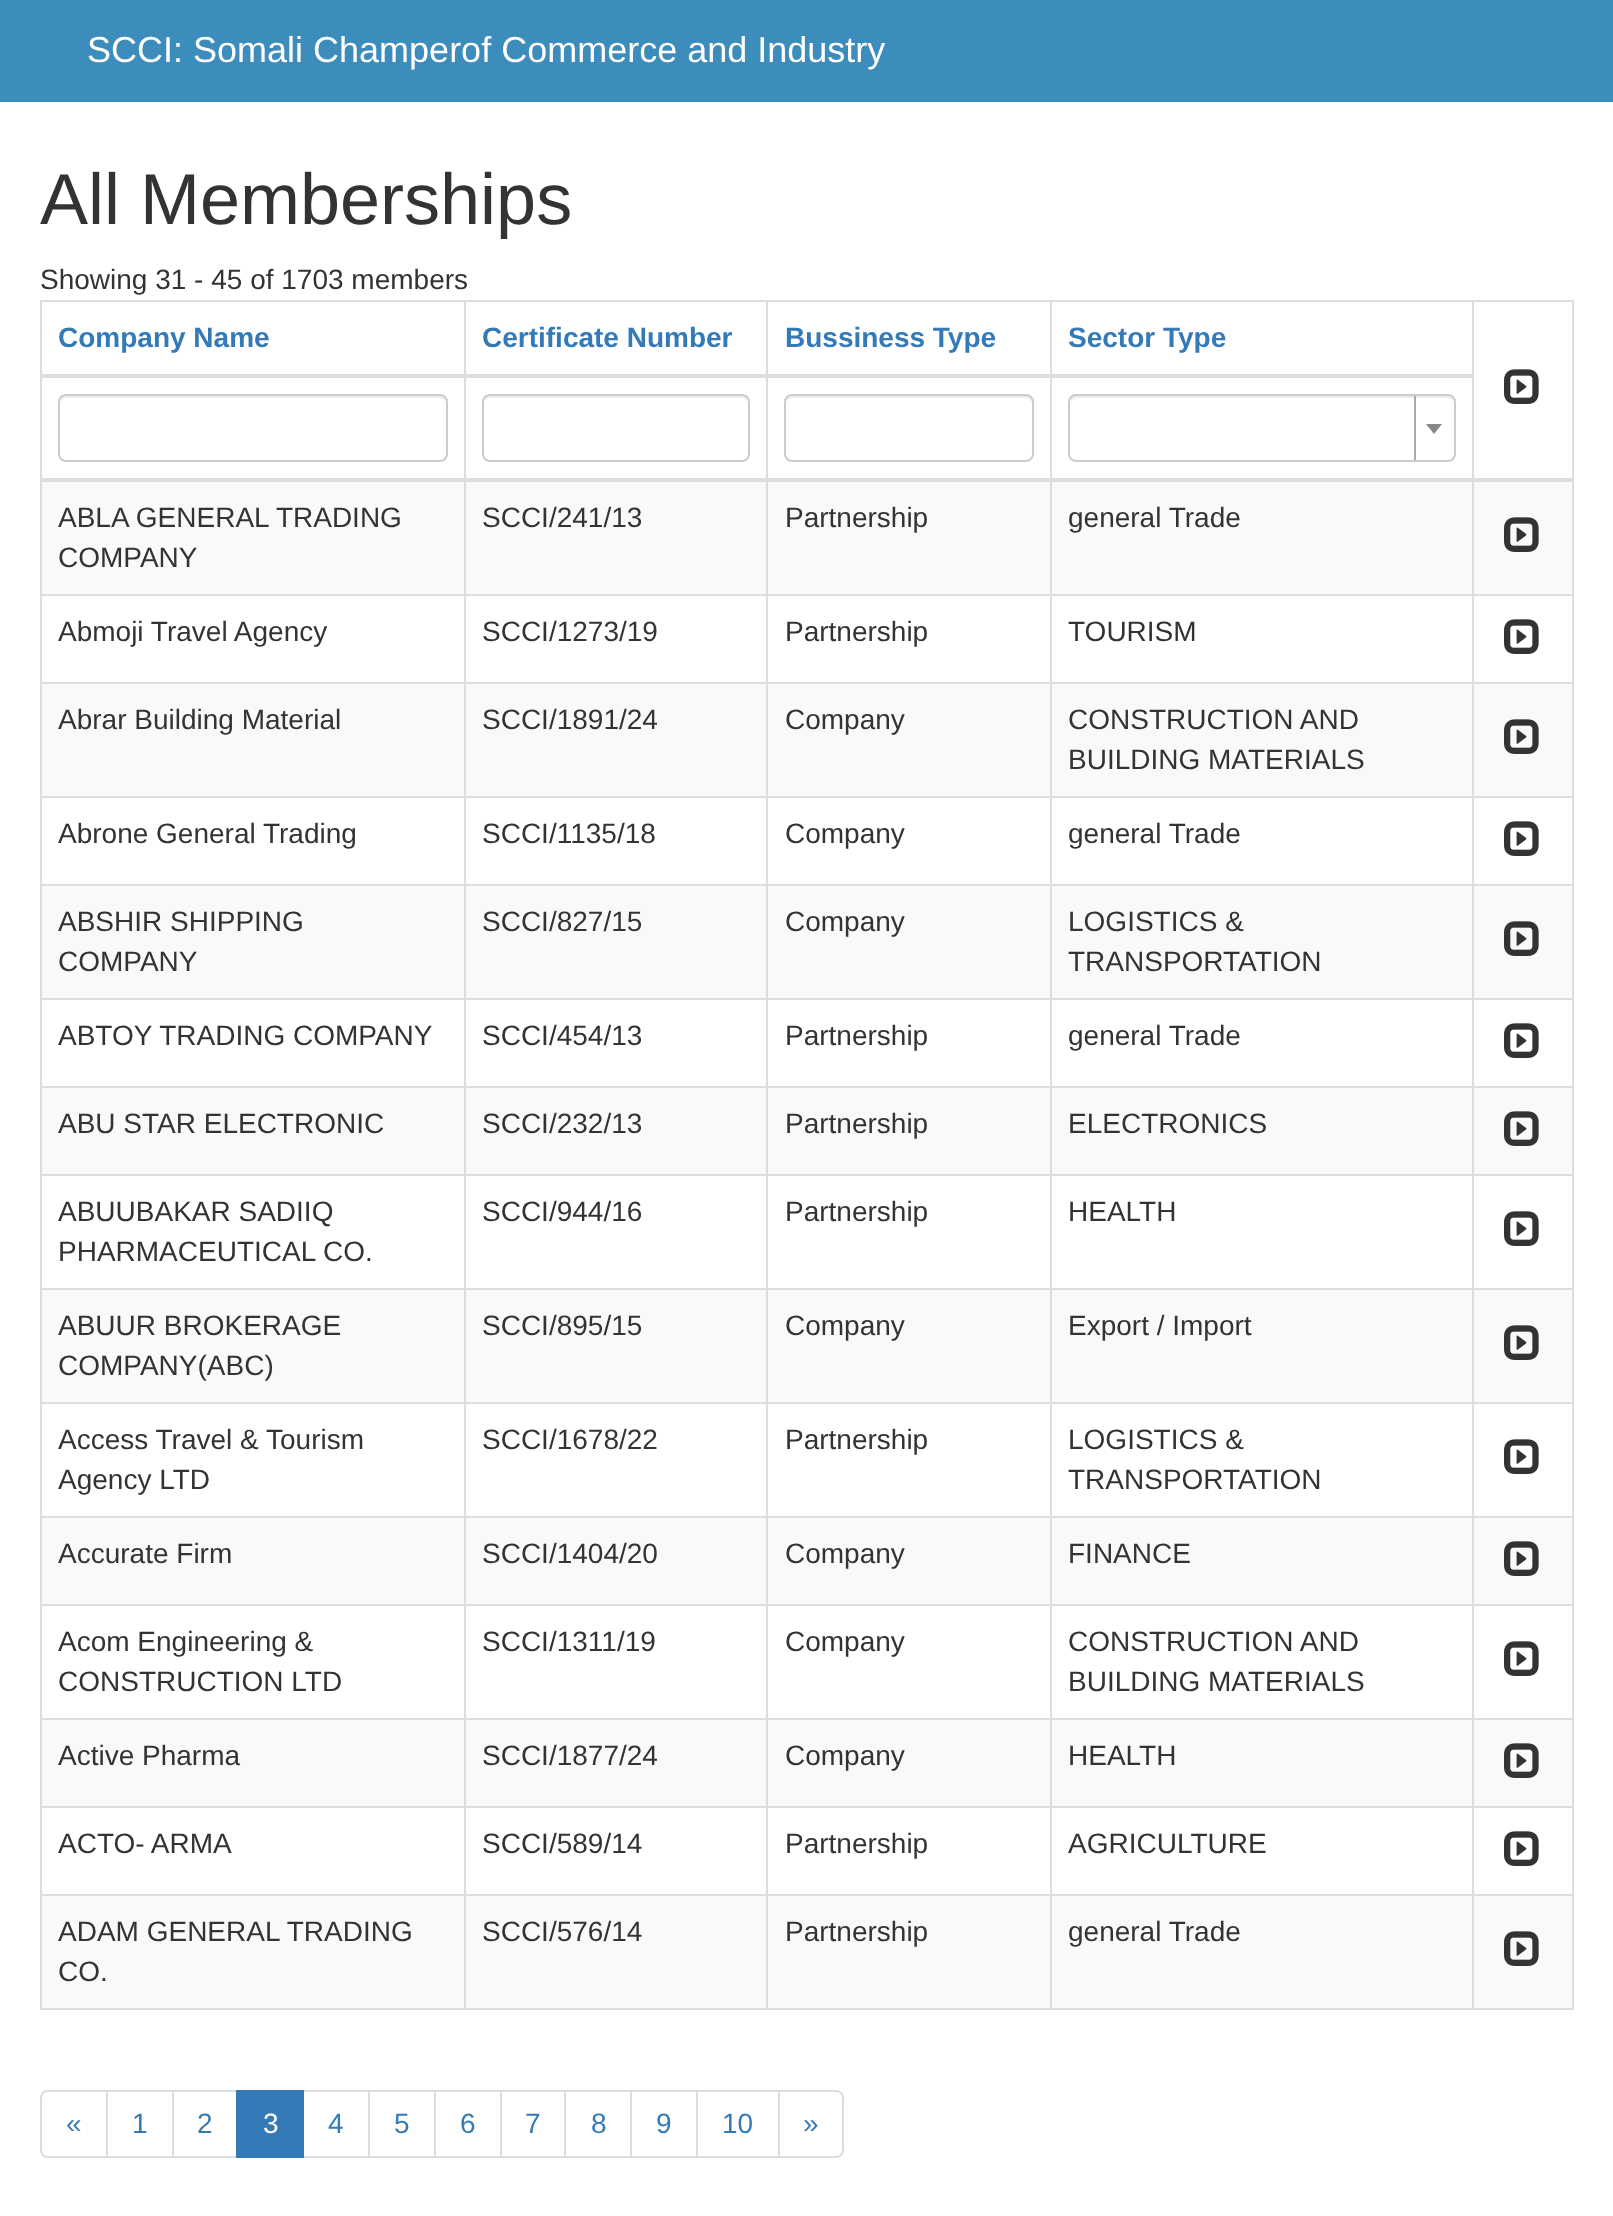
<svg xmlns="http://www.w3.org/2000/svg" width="1613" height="2216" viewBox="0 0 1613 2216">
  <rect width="100%" height="100%" fill="#ffffff"/>
  <rect x="0" y="0" width="1613" height="102" fill="#3c8dbc"/>
  <text x="87" y="62" font-family="Liberation Sans" font-size="36" fill="#ffffff">SCCI: Somali Champerof Commerce and Industry</text>
  <text x="40" y="224" font-family="Liberation Sans" font-size="72" fill="#333333">All Memberships</text>
  <text x="40" y="289" font-family="Liberation Sans" font-size="28" fill="#333333">Showing 31 - 45 of 1703 members</text>
  <rect x="40" y="300" width="1534" height="2" fill="#dddddd"/>
  <rect x="1572" y="300" width="2" height="1710" fill="#dddddd"/>
  <rect x="40" y="2008" width="1534" height="2" fill="#dddddd"/>
  <rect x="40" y="300" width="2" height="1710" fill="#dddddd"/>
  <text x="58" y="347" font-family="Liberation Sans" font-size="28" font-weight="bold" fill="#337ab7">Company Name</text>
  <text x="482" y="347" font-family="Liberation Sans" font-size="28" font-weight="bold" fill="#337ab7">Certificate Number</text>
  <text x="785" y="347" font-family="Liberation Sans" font-size="28" font-weight="bold" fill="#337ab7">Bussiness Type</text>
  <rect x="42" y="482" width="1530" height="112" fill="#f9f9f9"/>
  <rect x="1472" y="594" width="102" height="2" fill="#dddddd"/>
  <rect x="1472" y="682" width="102" height="2" fill="#dddddd"/>
  <rect x="42" y="684" width="1530" height="112" fill="#f9f9f9"/>
  <rect x="1472" y="796" width="102" height="2" fill="#dddddd"/>
  <rect x="1472" y="884" width="102" height="2" fill="#dddddd"/>
  <rect x="42" y="886" width="1530" height="112" fill="#f9f9f9"/>
  <rect x="1472" y="998" width="102" height="2" fill="#dddddd"/>
  <rect x="1472" y="1086" width="102" height="2" fill="#dddddd"/>
  <rect x="42" y="1088" width="1530" height="86" fill="#f9f9f9"/>
  <rect x="1472" y="1174" width="102" height="2" fill="#dddddd"/>
  <rect x="1472" y="1288" width="102" height="2" fill="#dddddd"/>
  <rect x="42" y="1290" width="1530" height="112" fill="#f9f9f9"/>
  <rect x="1472" y="1402" width="102" height="2" fill="#dddddd"/>
  <rect x="1472" y="1516" width="102" height="2" fill="#dddddd"/>
  <rect x="42" y="1518" width="1530" height="86" fill="#f9f9f9"/>
  <rect x="1472" y="1604" width="102" height="2" fill="#dddddd"/>
  <rect x="1472" y="1718" width="102" height="2" fill="#dddddd"/>
  <rect x="42" y="1720" width="1530" height="86" fill="#f9f9f9"/>
  <rect x="1472" y="1806" width="102" height="2" fill="#dddddd"/>
  <rect x="1472" y="1894" width="102" height="2" fill="#dddddd"/>
  <rect x="42" y="1896" width="1530" height="112" fill="#f9f9f9"/>
  <rect x="1472" y="1894" width="2" height="116" fill="#dddddd"/>
  <rect x="1050" y="1894" width="424" height="2" fill="#dddddd"/>
  <rect x="1472" y="1806" width="2" height="90" fill="#dddddd"/>
  <rect x="1050" y="1806" width="424" height="2" fill="#dddddd"/>
  <rect x="1472" y="1718" width="2" height="90" fill="#dddddd"/>
  <rect x="1050" y="1718" width="424" height="2" fill="#dddddd"/>
  <rect x="1472" y="1604" width="2" height="116" fill="#dddddd"/>
  <rect x="1050" y="1604" width="424" height="2" fill="#dddddd"/>
  <rect x="1472" y="1516" width="2" height="90" fill="#dddddd"/>
  <rect x="1050" y="1516" width="424" height="2" fill="#dddddd"/>
  <rect x="1472" y="1402" width="2" height="116" fill="#dddddd"/>
  <rect x="1050" y="1402" width="424" height="2" fill="#dddddd"/>
  <rect x="1472" y="1288" width="2" height="116" fill="#dddddd"/>
  <rect x="1050" y="1288" width="424" height="2" fill="#dddddd"/>
  <rect x="1472" y="1174" width="2" height="116" fill="#dddddd"/>
  <rect x="1050" y="1174" width="424" height="2" fill="#dddddd"/>
  <rect x="1472" y="1086" width="2" height="90" fill="#dddddd"/>
  <rect x="1050" y="1086" width="424" height="2" fill="#dddddd"/>
  <rect x="1472" y="998" width="2" height="90" fill="#dddddd"/>
  <rect x="1050" y="998" width="424" height="2" fill="#dddddd"/>
  <rect x="1472" y="884" width="2" height="116" fill="#dddddd"/>
  <rect x="1050" y="884" width="424" height="2" fill="#dddddd"/>
  <rect x="1472" y="796" width="2" height="90" fill="#dddddd"/>
  <rect x="1050" y="796" width="424" height="2" fill="#dddddd"/>
  <rect x="1472" y="682" width="2" height="116" fill="#dddddd"/>
  <rect x="1050" y="682" width="424" height="2" fill="#dddddd"/>
  <rect x="1472" y="594" width="2" height="90" fill="#dddddd"/>
  <rect x="1050" y="594" width="424" height="2" fill="#dddddd"/>
  <rect x="1050" y="1894" width="2" height="116" fill="#dddddd"/>
  <rect x="766" y="1894" width="286" height="2" fill="#dddddd"/>
  <rect x="1050" y="1806" width="2" height="90" fill="#dddddd"/>
  <rect x="766" y="1806" width="286" height="2" fill="#dddddd"/>
  <rect x="1050" y="1718" width="2" height="90" fill="#dddddd"/>
  <rect x="766" y="1718" width="286" height="2" fill="#dddddd"/>
  <rect x="1050" y="1604" width="2" height="116" fill="#dddddd"/>
  <rect x="766" y="1604" width="286" height="2" fill="#dddddd"/>
  <rect x="1050" y="1516" width="2" height="90" fill="#dddddd"/>
  <rect x="766" y="1516" width="286" height="2" fill="#dddddd"/>
  <rect x="1050" y="1402" width="2" height="116" fill="#dddddd"/>
  <rect x="766" y="1402" width="286" height="2" fill="#dddddd"/>
  <rect x="1050" y="1288" width="2" height="116" fill="#dddddd"/>
  <rect x="766" y="1288" width="286" height="2" fill="#dddddd"/>
  <rect x="1050" y="1174" width="2" height="116" fill="#dddddd"/>
  <rect x="766" y="1174" width="286" height="2" fill="#dddddd"/>
  <rect x="1050" y="1086" width="2" height="90" fill="#dddddd"/>
  <rect x="766" y="1086" width="286" height="2" fill="#dddddd"/>
  <rect x="1050" y="998" width="2" height="90" fill="#dddddd"/>
  <rect x="766" y="998" width="286" height="2" fill="#dddddd"/>
  <rect x="1050" y="884" width="2" height="116" fill="#dddddd"/>
  <rect x="766" y="884" width="286" height="2" fill="#dddddd"/>
  <rect x="1050" y="796" width="2" height="90" fill="#dddddd"/>
  <rect x="766" y="796" width="286" height="2" fill="#dddddd"/>
  <rect x="1050" y="682" width="2" height="116" fill="#dddddd"/>
  <rect x="766" y="682" width="286" height="2" fill="#dddddd"/>
  <rect x="1050" y="594" width="2" height="90" fill="#dddddd"/>
  <rect x="766" y="594" width="286" height="2" fill="#dddddd"/>
  <rect x="766" y="1894" width="2" height="116" fill="#dddddd"/>
  <rect x="464" y="1894" width="304" height="2" fill="#dddddd"/>
  <rect x="766" y="1806" width="2" height="90" fill="#dddddd"/>
  <rect x="464" y="1806" width="304" height="2" fill="#dddddd"/>
  <rect x="766" y="1718" width="2" height="90" fill="#dddddd"/>
  <rect x="464" y="1718" width="304" height="2" fill="#dddddd"/>
  <rect x="766" y="1604" width="2" height="116" fill="#dddddd"/>
  <rect x="464" y="1604" width="304" height="2" fill="#dddddd"/>
  <rect x="766" y="1516" width="2" height="90" fill="#dddddd"/>
  <rect x="464" y="1516" width="304" height="2" fill="#dddddd"/>
  <rect x="766" y="1402" width="2" height="116" fill="#dddddd"/>
  <rect x="464" y="1402" width="304" height="2" fill="#dddddd"/>
  <rect x="766" y="1288" width="2" height="116" fill="#dddddd"/>
  <rect x="464" y="1288" width="304" height="2" fill="#dddddd"/>
  <rect x="766" y="1174" width="2" height="116" fill="#dddddd"/>
  <rect x="464" y="1174" width="304" height="2" fill="#dddddd"/>
  <rect x="766" y="1086" width="2" height="90" fill="#dddddd"/>
  <rect x="464" y="1086" width="304" height="2" fill="#dddddd"/>
  <rect x="766" y="998" width="2" height="90" fill="#dddddd"/>
  <rect x="464" y="998" width="304" height="2" fill="#dddddd"/>
  <rect x="766" y="884" width="2" height="116" fill="#dddddd"/>
  <rect x="464" y="884" width="304" height="2" fill="#dddddd"/>
  <rect x="766" y="796" width="2" height="90" fill="#dddddd"/>
  <rect x="464" y="796" width="304" height="2" fill="#dddddd"/>
  <rect x="766" y="682" width="2" height="116" fill="#dddddd"/>
  <rect x="464" y="682" width="304" height="2" fill="#dddddd"/>
  <rect x="766" y="594" width="2" height="90" fill="#dddddd"/>
  <rect x="464" y="594" width="304" height="2" fill="#dddddd"/>
  <rect x="464" y="1894" width="2" height="116" fill="#dddddd"/>
  <rect x="40" y="1894" width="426" height="2" fill="#dddddd"/>
  <rect x="464" y="1806" width="2" height="90" fill="#dddddd"/>
  <rect x="40" y="1806" width="426" height="2" fill="#dddddd"/>
  <rect x="464" y="1718" width="2" height="90" fill="#dddddd"/>
  <rect x="40" y="1718" width="426" height="2" fill="#dddddd"/>
  <rect x="464" y="1604" width="2" height="116" fill="#dddddd"/>
  <rect x="40" y="1604" width="426" height="2" fill="#dddddd"/>
  <rect x="464" y="1516" width="2" height="90" fill="#dddddd"/>
  <rect x="40" y="1516" width="426" height="2" fill="#dddddd"/>
  <rect x="464" y="1402" width="2" height="116" fill="#dddddd"/>
  <rect x="40" y="1402" width="426" height="2" fill="#dddddd"/>
  <rect x="464" y="1288" width="2" height="116" fill="#dddddd"/>
  <rect x="40" y="1288" width="426" height="2" fill="#dddddd"/>
  <rect x="464" y="1174" width="2" height="116" fill="#dddddd"/>
  <rect x="40" y="1174" width="426" height="2" fill="#dddddd"/>
  <rect x="464" y="1086" width="2" height="90" fill="#dddddd"/>
  <rect x="40" y="1086" width="426" height="2" fill="#dddddd"/>
  <rect x="464" y="998" width="2" height="90" fill="#dddddd"/>
  <rect x="40" y="998" width="426" height="2" fill="#dddddd"/>
  <rect x="464" y="884" width="2" height="116" fill="#dddddd"/>
  <rect x="40" y="884" width="426" height="2" fill="#dddddd"/>
  <rect x="464" y="796" width="2" height="90" fill="#dddddd"/>
  <rect x="40" y="796" width="426" height="2" fill="#dddddd"/>
  <rect x="464" y="682" width="2" height="116" fill="#dddddd"/>
  <rect x="40" y="682" width="426" height="2" fill="#dddddd"/>
  <rect x="464" y="594" width="2" height="90" fill="#dddddd"/>
  <rect x="40" y="594" width="426" height="2" fill="#dddddd"/>
  <rect x="464" y="300" width="2" height="296" fill="#dddddd"/>
  <rect x="766" y="300" width="2" height="296" fill="#dddddd"/>
  <rect x="1050" y="300" width="2" height="296" fill="#dddddd"/>
  <rect x="1472" y="300" width="2" height="296" fill="#dddddd"/>
  <rect x="40" y="374" width="1434" height="4" fill="#dddddd"/>
  <text x="1068" y="347" font-family="Liberation Sans" font-size="28" font-weight="bold" fill="#337ab7">Sector Type</text>
  <image x="1504" y="369" width="35" height="35" href="img1.png"/>
  <rect x="40" y="478" width="1534" height="4" fill="#dddddd"/>
  <path d="M1076 398H1448C1451 398 1454 401 1454 404C1454 400 1453 396 1448 396H1076C1071 396 1070 400 1070 404C1070 401 1073 398 1076 398Z" fill="#ececec"/>
  <rect x="1069" y="395" width="386" height="66" rx="7" fill="none" stroke="#cccccc" stroke-width="2"/>
  <rect x="1414" y="396" width="2" height="64" fill="#aaaaaa"/>
  <path d="M1426 424H1442L1434 434Z" fill="#888888"/>
  <path d="M66 398H440C443 398 446 401 446 404C446 400 445 396 440 396H66C61 396 60 400 60 404C60 401 63 398 66 398Z" fill="#ececec"/>
  <rect x="59" y="395" width="388" height="66" rx="7" fill="none" stroke="#cccccc" stroke-width="2"/>
  <path d="M490 398H742C745 398 748 401 748 404C748 401 747 397 743 396H489C485 397 484 401 484 404C484 401 487 398 490 398Z" fill="#ececec"/>
  <rect x="483" y="395" width="266" height="66" rx="7" fill="none" stroke="#cccccc" stroke-width="2"/>
  <path d="M792 398H1026C1029 398 1032 401 1032 404V402C1032 399 1029 396 1026 396H792C789 396 786 399 786 402V404C786 401 789 398 792 398Z" fill="#ececec"/>
  <rect x="785" y="395" width="248" height="66" rx="7" fill="none" stroke="#cccccc" stroke-width="2"/>
  <text x="58" y="527" font-family="Liberation Sans" font-size="28" fill="#333333">ABLA GENERAL TRADING</text>
  <text x="58" y="567" font-family="Liberation Sans" font-size="28" fill="#333333">COMPANY</text>
  <text x="482" y="527" font-family="Liberation Sans" font-size="28" fill="#333333">SCCI/241/13</text>
  <text x="785" y="527" font-family="Liberation Sans" font-size="28" fill="#333333">Partnership</text>
  <text x="1068" y="527" font-family="Liberation Sans" font-size="28" fill="#333333">general Trade</text>
  <image x="1504" y="517" width="35" height="35" href="img2.png"/>
  <text x="58" y="641" font-family="Liberation Sans" font-size="28" fill="#333333">Abmoji Travel Agency</text>
  <text x="482" y="641" font-family="Liberation Sans" font-size="28" fill="#333333">SCCI/1273/19</text>
  <text x="785" y="641" font-family="Liberation Sans" font-size="28" fill="#333333">Partnership</text>
  <text x="1068" y="641" font-family="Liberation Sans" font-size="28" fill="#333333">TOURISM</text>
  <image x="1504" y="619" width="35" height="35" href="img1.png"/>
  <text x="58" y="729" font-family="Liberation Sans" font-size="28" fill="#333333">Abrar Building Material</text>
  <text x="482" y="729" font-family="Liberation Sans" font-size="28" fill="#333333">SCCI/1891/24</text>
  <text x="785" y="729" font-family="Liberation Sans" font-size="28" fill="#333333">Company</text>
  <text x="1068" y="729" font-family="Liberation Sans" font-size="28" fill="#333333">CONSTRUCTION AND</text>
  <text x="1068" y="769" font-family="Liberation Sans" font-size="28" fill="#333333">BUILDING MATERIALS</text>
  <image x="1504" y="719" width="35" height="35" href="img2.png"/>
  <text x="58" y="843" font-family="Liberation Sans" font-size="28" fill="#333333">Abrone General Trading</text>
  <text x="482" y="843" font-family="Liberation Sans" font-size="28" fill="#333333">SCCI/1135/18</text>
  <text x="785" y="843" font-family="Liberation Sans" font-size="28" fill="#333333">Company</text>
  <text x="1068" y="843" font-family="Liberation Sans" font-size="28" fill="#333333">general Trade</text>
  <image x="1504" y="821" width="35" height="35" href="img1.png"/>
  <text x="58" y="931" font-family="Liberation Sans" font-size="28" fill="#333333">ABSHIR SHIPPING</text>
  <text x="58" y="971" font-family="Liberation Sans" font-size="28" fill="#333333">COMPANY</text>
  <text x="482" y="931" font-family="Liberation Sans" font-size="28" fill="#333333">SCCI/827/15</text>
  <text x="785" y="931" font-family="Liberation Sans" font-size="28" fill="#333333">Company</text>
  <text x="1068" y="931" font-family="Liberation Sans" font-size="28" fill="#333333">LOGISTICS &amp;</text>
  <text x="1068" y="971" font-family="Liberation Sans" font-size="28" fill="#333333">TRANSPORTATION</text>
  <image x="1504" y="921" width="35" height="35" href="img2.png"/>
  <text x="58" y="1045" font-family="Liberation Sans" font-size="28" fill="#333333">ABTOY TRADING COMPANY</text>
  <text x="482" y="1045" font-family="Liberation Sans" font-size="28" fill="#333333">SCCI/454/13</text>
  <text x="785" y="1045" font-family="Liberation Sans" font-size="28" fill="#333333">Partnership</text>
  <text x="1068" y="1045" font-family="Liberation Sans" font-size="28" fill="#333333">general Trade</text>
  <image x="1504" y="1023" width="35" height="35" href="img1.png"/>
  <text x="58" y="1133" font-family="Liberation Sans" font-size="28" fill="#333333">ABU STAR ELECTRONIC</text>
  <text x="482" y="1133" font-family="Liberation Sans" font-size="28" fill="#333333">SCCI/232/13</text>
  <text x="785" y="1133" font-family="Liberation Sans" font-size="28" fill="#333333">Partnership</text>
  <text x="1068" y="1133" font-family="Liberation Sans" font-size="28" fill="#333333">ELECTRONICS</text>
  <image x="1504" y="1111" width="35" height="35" href="img2.png"/>
  <text x="58" y="1221" font-family="Liberation Sans" font-size="28" fill="#333333">ABUUBAKAR SADIIQ</text>
  <text x="58" y="1261" font-family="Liberation Sans" font-size="28" fill="#333333">PHARMACEUTICAL CO.</text>
  <text x="482" y="1221" font-family="Liberation Sans" font-size="28" fill="#333333">SCCI/944/16</text>
  <text x="785" y="1221" font-family="Liberation Sans" font-size="28" fill="#333333">Partnership</text>
  <text x="1068" y="1221" font-family="Liberation Sans" font-size="28" fill="#333333">HEALTH</text>
  <image x="1504" y="1211" width="35" height="35" href="img1.png"/>
  <text x="58" y="1335" font-family="Liberation Sans" font-size="28" fill="#333333">ABUUR BROKERAGE</text>
  <text x="58" y="1375" font-family="Liberation Sans" font-size="28" fill="#333333">COMPANY(ABC)</text>
  <text x="482" y="1335" font-family="Liberation Sans" font-size="28" fill="#333333">SCCI/895/15</text>
  <text x="785" y="1335" font-family="Liberation Sans" font-size="28" fill="#333333">Company</text>
  <text x="1068" y="1335" font-family="Liberation Sans" font-size="28" fill="#333333">Export / Import</text>
  <image x="1504" y="1325" width="35" height="35" href="img2.png"/>
  <text x="58" y="1449" font-family="Liberation Sans" font-size="28" fill="#333333">Access Travel &amp; Tourism</text>
  <text x="58" y="1489" font-family="Liberation Sans" font-size="28" fill="#333333">Agency LTD</text>
  <text x="482" y="1449" font-family="Liberation Sans" font-size="28" fill="#333333">SCCI/1678/22</text>
  <text x="785" y="1449" font-family="Liberation Sans" font-size="28" fill="#333333">Partnership</text>
  <text x="1068" y="1449" font-family="Liberation Sans" font-size="28" fill="#333333">LOGISTICS &amp;</text>
  <text x="1068" y="1489" font-family="Liberation Sans" font-size="28" fill="#333333">TRANSPORTATION</text>
  <image x="1504" y="1439" width="35" height="35" href="img1.png"/>
  <text x="58" y="1563" font-family="Liberation Sans" font-size="28" fill="#333333">Accurate Firm</text>
  <text x="482" y="1563" font-family="Liberation Sans" font-size="28" fill="#333333">SCCI/1404/20</text>
  <text x="785" y="1563" font-family="Liberation Sans" font-size="28" fill="#333333">Company</text>
  <text x="1068" y="1563" font-family="Liberation Sans" font-size="28" fill="#333333">FINANCE</text>
  <image x="1504" y="1541" width="35" height="35" href="img2.png"/>
  <text x="58" y="1651" font-family="Liberation Sans" font-size="28" fill="#333333">Acom Engineering &amp;</text>
  <text x="58" y="1691" font-family="Liberation Sans" font-size="28" fill="#333333">CONSTRUCTION LTD</text>
  <text x="482" y="1651" font-family="Liberation Sans" font-size="28" fill="#333333">SCCI/1311/19</text>
  <text x="785" y="1651" font-family="Liberation Sans" font-size="28" fill="#333333">Company</text>
  <text x="1068" y="1651" font-family="Liberation Sans" font-size="28" fill="#333333">CONSTRUCTION AND</text>
  <text x="1068" y="1691" font-family="Liberation Sans" font-size="28" fill="#333333">BUILDING MATERIALS</text>
  <image x="1504" y="1641" width="35" height="35" href="img1.png"/>
  <text x="58" y="1765" font-family="Liberation Sans" font-size="28" fill="#333333">Active Pharma</text>
  <text x="482" y="1765" font-family="Liberation Sans" font-size="28" fill="#333333">SCCI/1877/24</text>
  <text x="785" y="1765" font-family="Liberation Sans" font-size="28" fill="#333333">Company</text>
  <text x="1068" y="1765" font-family="Liberation Sans" font-size="28" fill="#333333">HEALTH</text>
  <image x="1504" y="1743" width="35" height="35" href="img2.png"/>
  <text x="58" y="1853" font-family="Liberation Sans" font-size="28" fill="#333333">ACTO- ARMA</text>
  <text x="482" y="1853" font-family="Liberation Sans" font-size="28" fill="#333333">SCCI/589/14</text>
  <text x="785" y="1853" font-family="Liberation Sans" font-size="28" fill="#333333">Partnership</text>
  <text x="1068" y="1853" font-family="Liberation Sans" font-size="28" fill="#333333">AGRICULTURE</text>
  <image x="1504" y="1831" width="35" height="35" href="img1.png"/>
  <text x="58" y="1941" font-family="Liberation Sans" font-size="28" fill="#333333">ADAM GENERAL TRADING</text>
  <text x="58" y="1981" font-family="Liberation Sans" font-size="28" fill="#333333">CO.</text>
  <text x="482" y="1941" font-family="Liberation Sans" font-size="28" fill="#333333">SCCI/576/14</text>
  <text x="785" y="1941" font-family="Liberation Sans" font-size="28" fill="#333333">Partnership</text>
  <text x="1068" y="1941" font-family="Liberation Sans" font-size="28" fill="#333333">general Trade</text>
  <image x="1504" y="1931" width="35" height="35" href="img2.png"/>
  <path d="M48 2091H107V2157H48C44 2157 41 2154 41 2150V2098C41 2094 44 2091 48 2091Z" fill="none" stroke="#dddddd" stroke-width="2"/>
  <text x="66" y="2133" font-family="Liberation Sans" font-size="28" fill="#337ab7">«</text>
  <rect x="107" y="2091" width="66" height="66" fill="none" stroke="#dddddd" stroke-width="2"/>
  <text x="132" y="2133" font-family="Liberation Sans" font-size="28" fill="#337ab7">1</text>
  <rect x="173" y="2091" width="64" height="66" fill="none" stroke="#dddddd" stroke-width="2"/>
  <text x="197" y="2133" font-family="Liberation Sans" font-size="28" fill="#337ab7">2</text>
  <rect x="303" y="2091" width="66" height="66" fill="none" stroke="#dddddd" stroke-width="2"/>
  <rect x="236" y="2090" width="68" height="68" fill="#337ab7"/>
  <text x="263" y="2133" font-family="Liberation Sans" font-size="28" fill="#ffffff">3</text>
  <text x="328" y="2133" font-family="Liberation Sans" font-size="28" fill="#337ab7">4</text>
  <rect x="369" y="2091" width="66" height="66" fill="none" stroke="#dddddd" stroke-width="2"/>
  <text x="394" y="2133" font-family="Liberation Sans" font-size="28" fill="#337ab7">5</text>
  <rect x="435" y="2091" width="66" height="66" fill="none" stroke="#dddddd" stroke-width="2"/>
  <text x="460" y="2133" font-family="Liberation Sans" font-size="28" fill="#337ab7">6</text>
  <rect x="501" y="2091" width="64" height="66" fill="none" stroke="#dddddd" stroke-width="2"/>
  <text x="525" y="2133" font-family="Liberation Sans" font-size="28" fill="#337ab7">7</text>
  <rect x="565" y="2091" width="66" height="66" fill="none" stroke="#dddddd" stroke-width="2"/>
  <text x="591" y="2133" font-family="Liberation Sans" font-size="28" fill="#337ab7">8</text>
  <rect x="631" y="2091" width="66" height="66" fill="none" stroke="#dddddd" stroke-width="2"/>
  <text x="656" y="2133" font-family="Liberation Sans" font-size="28" fill="#337ab7">9</text>
  <rect x="697" y="2091" width="82" height="66" fill="none" stroke="#dddddd" stroke-width="2"/>
  <text x="722" y="2133" font-family="Liberation Sans" font-size="28" fill="#337ab7">10</text>
  <path d="M779 2091H836C840 2091 843 2094 843 2098V2150C843 2154 840 2157 836 2157H779Z" fill="#ffffff" stroke="#dddddd" stroke-width="2"/>
  <text x="803" y="2133" font-family="Liberation Sans" font-size="28" fill="#337ab7">»</text>
</svg>
